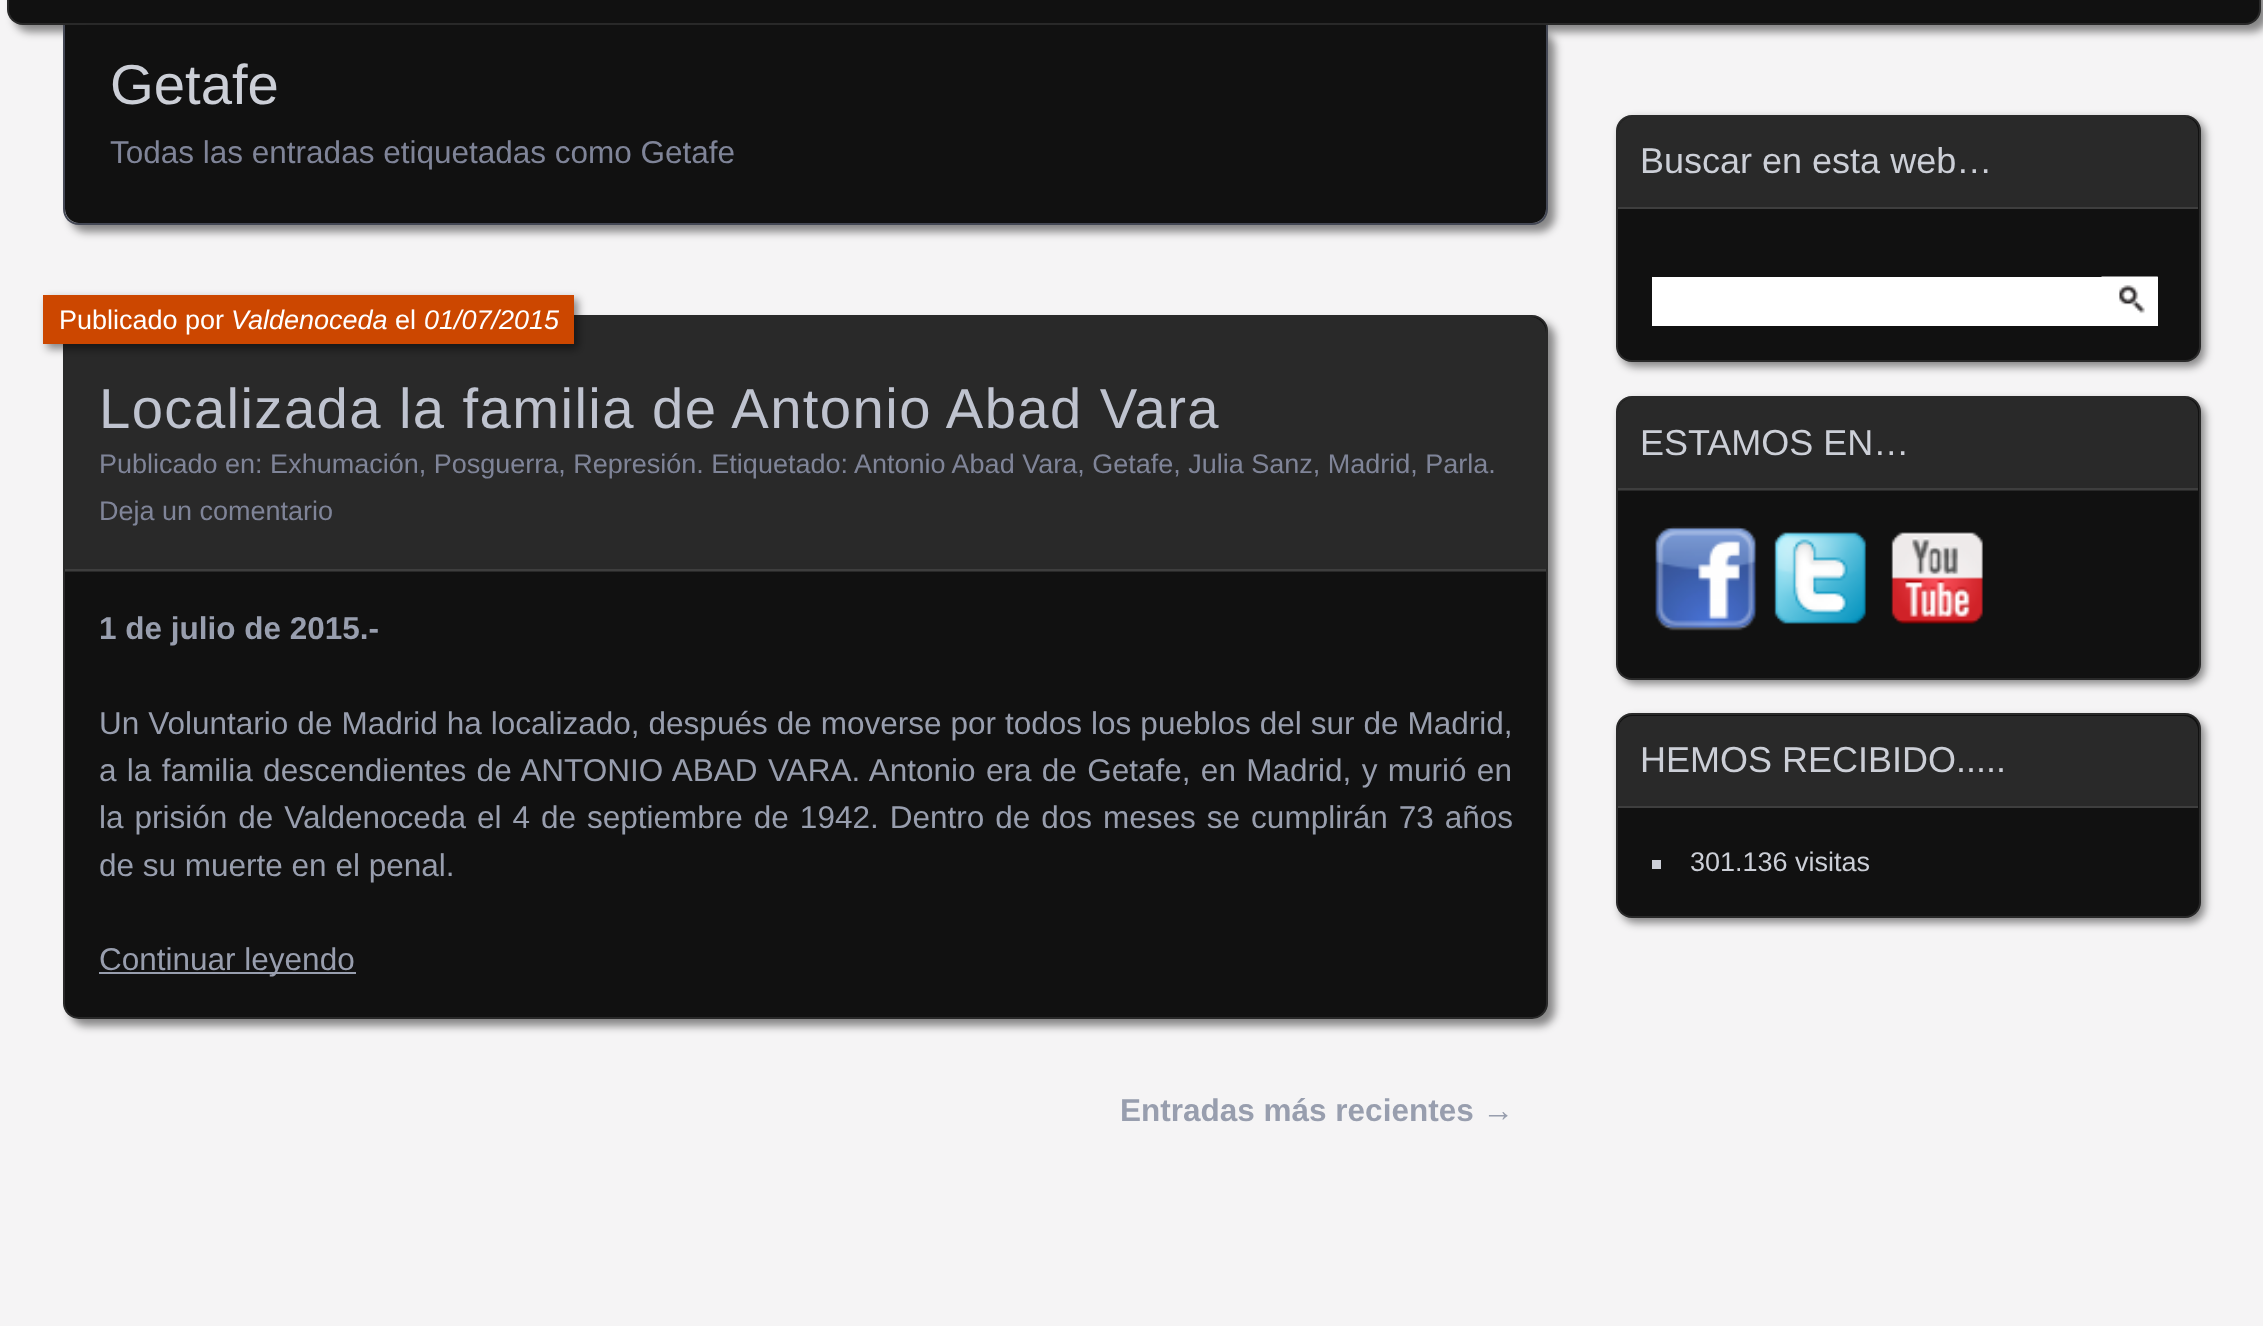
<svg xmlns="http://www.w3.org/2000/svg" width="2263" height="1326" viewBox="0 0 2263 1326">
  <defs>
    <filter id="blur1" x="-50%" y="-200%" width="200%" height="500%"><feGaussianBlur stdDeviation="4.5"/></filter>
    <filter id="blur2" x="-50%" y="-200%" width="200%" height="500%"><feGaussianBlur stdDeviation="4"/></filter>
  </defs>
  <rect width="100%" height="100%" fill="#f5f4f5"/>
  <rect x="14" y="-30" width="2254" height="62" rx="16" fill="#000000" fill-opacity="0.45" filter="url(#blur1)"/>
  <rect x="7" y="-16" width="2254" height="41" rx="16" fill="#111111"/>
  <rect x="8" y="-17" width="2252" height="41" rx="15" fill="none" stroke="#ffffff" stroke-opacity="0.1" stroke-width="2"/>
  <rect x="70" y="32" width="1485" height="200" rx="16" fill="#000000" fill-opacity="0.45" filter="url(#blur1)"/>
  <path d="M65 25H1546V209C1546 216.5 1539.5 223 1532 223H79C71.5 223 65 216.5 65 209Z" fill="#111111"/>
  <path d="M63 25H1548V209C1548 218 1541 225 1532 225H79C70 225 63 218 63 209ZM65 25H1546V209C1546 217 1540 223 1532 223H79C71 223 65 217 65 209Z" fill="#444855" fill-rule="evenodd"/>
  <text x="110" y="104" font-family="Liberation Sans" font-size="56.25" fill="#cccfd7">Getafe</text>
  <text x="110" y="163" font-family="Liberation Sans" font-size="31.5" fill="#7f8498">Todas las entradas etiquetadas como Getafe</text>
  <rect x="70" y="322" width="1485" height="704" rx="16" fill="#000000" fill-opacity="0.45" filter="url(#blur1)"/>
  <rect x="63" y="315" width="1485" height="704" rx="16" fill="#111111"/>
  <rect x="64" y="316" width="1483" height="702" rx="15" fill="none" stroke="#ffffff" stroke-opacity="0.1" stroke-width="2"/>
  <path d="M81 317H1530C1539 317 1546 324 1546 333V572H65V333C65 324 72 317 81 317Z" fill="#ffffff" fill-opacity="0.1"/>
  <rect x="65" y="569" width="1481" height="2" fill="#3e3e3e"/>
  <rect x="47" y="299" width="531" height="50" fill="#000000" fill-opacity="0.45" filter="url(#blur2)"/>
  <rect x="43" y="295" width="531" height="49" fill="#cc4700"/>
  <text x="59" y="329" font-family="Liberation Sans" font-size="27" fill="#ffffff">Publicado por</text>
  <text x="231" y="329" font-family="Liberation Sans" font-size="27" font-style="italic" fill="#ffffff">Valdenoceda</text>
  <text x="395" y="329" font-family="Liberation Sans" font-size="27" fill="#ffffff">el</text>
  <text x="424" y="329" font-family="Liberation Sans" font-size="27" font-style="italic" fill="#ffffff">01/07/2015</text>
  <text x="99" y="428" font-family="Liberation Sans" font-size="56.25" letter-spacing="1.4" fill="#bfc3cf">Localizada la familia de Antonio Abad Vara</text>
  <text x="99" y="473" font-family="Liberation Sans" font-size="27" fill="#7f8498">Publicado en: Exhumación, Posguerra, Represión. Etiquetado:</text>
  <text x="854" y="473" font-family="Liberation Sans" font-size="27" fill="#7f8498">Antonio Abad Vara, Getafe, Julia Sanz, Madrid, Parla.</text>
  <text x="99" y="520" font-family="Liberation Sans" font-size="27" fill="#7f8498">Deja un comentario</text>
  <text x="99" y="639" font-family="Liberation Sans" font-size="31.5" font-weight="bold" fill="#989eae">1 de julio de 2015.-</text>
  <text x="99" y="734" word-spacing="0.25" font-family="Liberation Sans" font-size="31.5" fill="#989eae">Un Voluntario de Madrid ha localizado, después de moverse por todos los pueblos del sur de Madrid,</text>
  <text x="99" y="781" word-spacing="1.6" font-family="Liberation Sans" font-size="31.5" fill="#989eae">a la familia descendientes de ANTONIO ABAD VARA. Antonio era de Getafe, en Madrid, y murió en</text>
  <text x="99" y="828" word-spacing="2.25" font-family="Liberation Sans" font-size="31.5" fill="#989eae">la prisión de Valdenoceda el 4 de septiembre de 1942. Dentro de dos meses se cumplirán 73 años</text>
  <text x="99" y="876" font-family="Liberation Sans" font-size="31.5" fill="#989eae">de su muerte en el penal.</text>
  <rect x="99" y="972" width="257" height="2" fill="#989eae"/>
  <text x="99" y="970" font-family="Liberation Sans" font-size="31.5" fill="#989eae">Continuar leyendo</text>
  <text x="1120" y="1121" font-family="Liberation Sans" font-size="31.5" font-weight="bold" fill="#989eae">Entradas más recientes →</text>
  <rect x="1620" y="119" width="585" height="248" rx="16" fill="#000000" fill-opacity="0.45" filter="url(#blur2)"/>
  <rect x="1616" y="115" width="585" height="247" rx="16" fill="#111111"/>
  <rect x="1617" y="116" width="583" height="245" rx="15" fill="none" stroke="#ffffff" stroke-opacity="0.1" stroke-width="2"/>
  <path d="M1632 117H2184C2191.5 117 2198 123.5 2198 131V209H1618V131C1618 123.5 1624.5 117 1632 117Z" fill="#ffffff" fill-opacity="0.1"/>
  <rect x="1618" y="207" width="580" height="2" fill="#3e3e3e"/>
  <text x="1640" y="173" font-family="Liberation Sans" font-size="36" fill="#cccfd7">Buscar en esta web…</text>
  <rect x="1652" y="277" width="506" height="49" fill="#ffffff"/>
  <image x="2101" y="276" width="57" height="38" href="img1.png"/>
  <rect x="1620" y="401" width="585" height="283" rx="16" fill="#000000" fill-opacity="0.45" filter="url(#blur2)"/>
  <rect x="1616" y="396" width="585" height="284" rx="16" fill="#111111"/>
  <rect x="1617" y="397" width="583" height="282" rx="15" fill="none" stroke="#ffffff" stroke-opacity="0.1" stroke-width="2"/>
  <path d="M1632 398H2184C2191.5 398 2198 404.5 2198 412V491H1618V412C1618 404.5 1624.5 398 1632 398Z" fill="#ffffff" fill-opacity="0.1"/>
  <rect x="1618" y="488" width="580" height="2" fill="#3e3e3e"/>
  <text x="1640" y="455" font-family="Liberation Sans" font-size="36" fill="#cccfd7">ESTAMOS EN…</text>
  <image x="1655" y="526" width="102" height="105" href="img2.png"/>
  <image x="1774" y="532" width="94" height="92" href="img3.png"/>
  <image x="1891" y="532" width="92" height="92" href="img4.png"/>
  <rect x="1620" y="718" width="585" height="205" rx="16" fill="#000000" fill-opacity="0.45" filter="url(#blur2)"/>
  <rect x="1616" y="713" width="585" height="205" rx="16" fill="#111111"/>
  <rect x="1617" y="714" width="583" height="203" rx="15" fill="none" stroke="#ffffff" stroke-opacity="0.1" stroke-width="2"/>
  <path d="M1632 716H2184C2191.5 716 2198 722.5 2198 730V808H1618V730C1618 722.5 1624.5 716 1632 716Z" fill="#ffffff" fill-opacity="0.1"/>
  <rect x="1618" y="806" width="580" height="2" fill="#3e3e3e"/>
  <text x="1640" y="772" font-family="Liberation Sans" font-size="36" fill="#cccfd7">HEMOS RECIBIDO.....</text>
  <rect x="1652" y="860" width="9" height="9" fill="#cccfd7"/>
  <text x="1690" y="871" font-family="Liberation Sans" font-size="27" fill="#cccfd7">301.136 visitas</text>
</svg>
